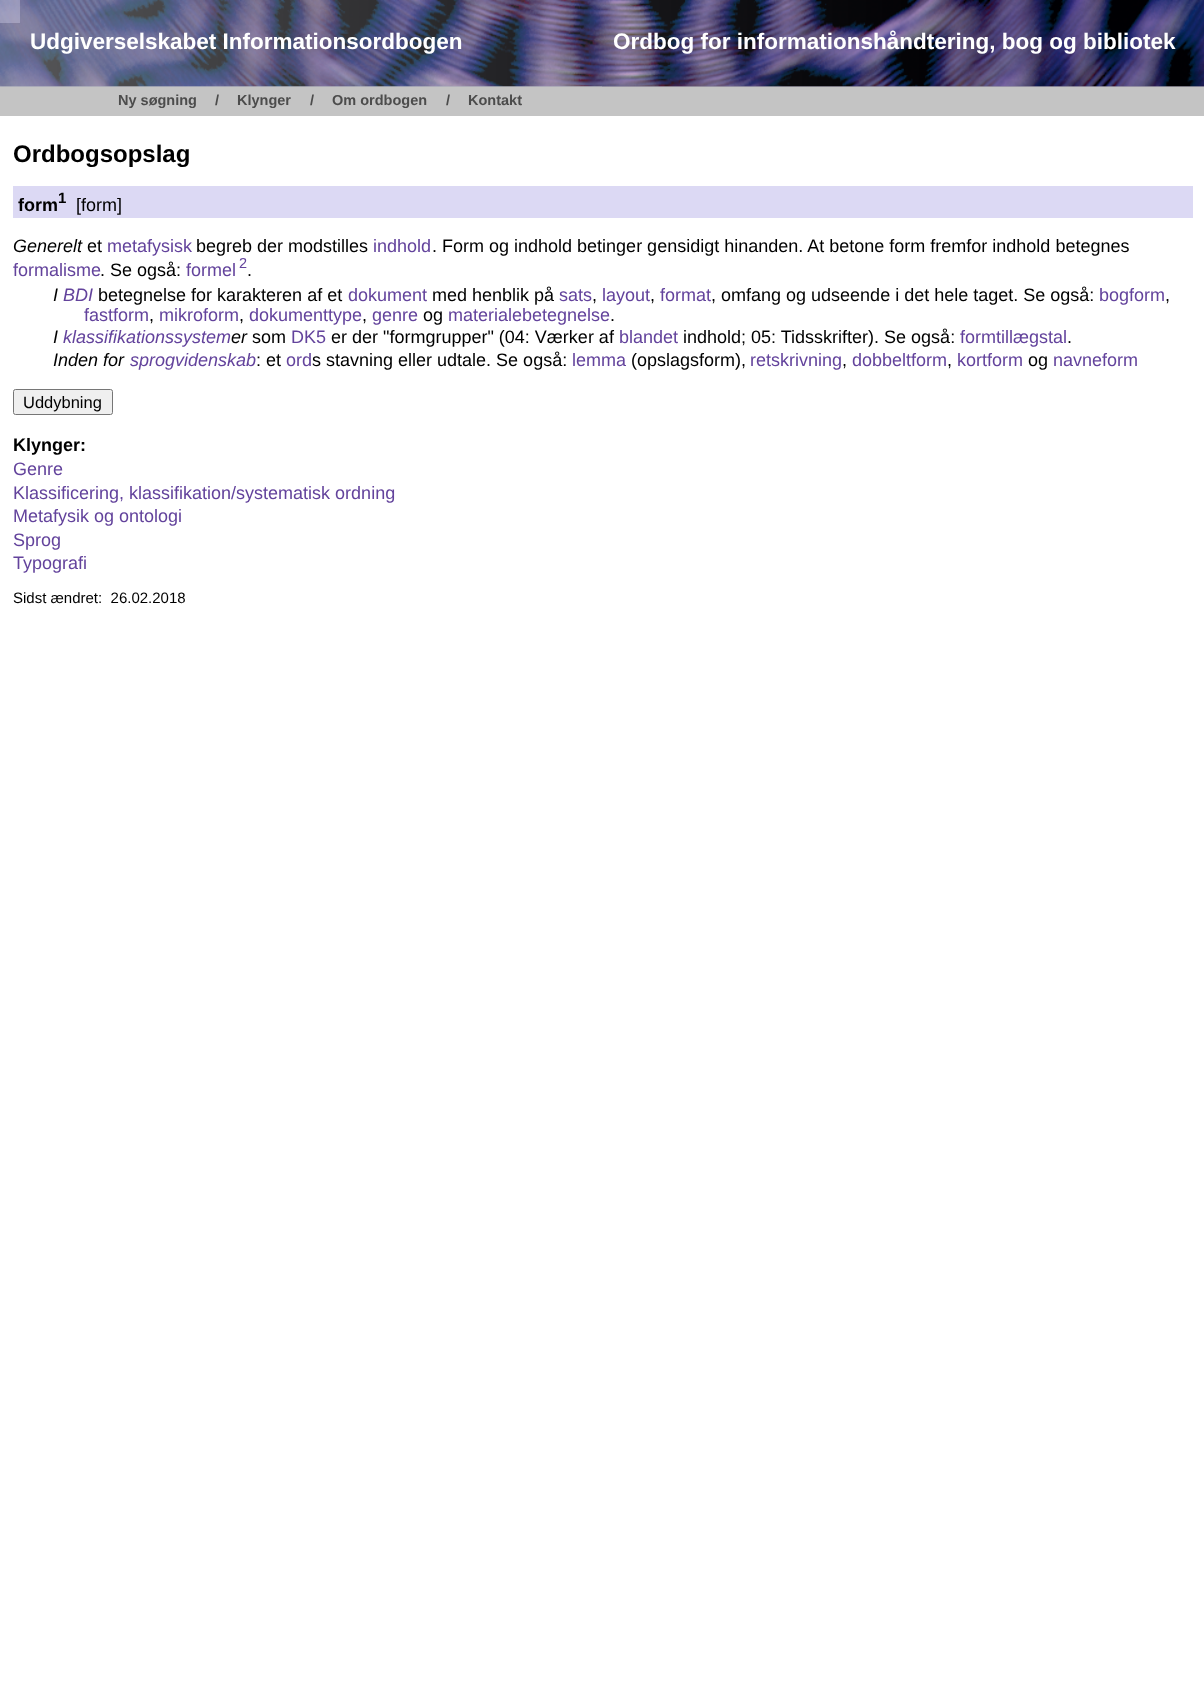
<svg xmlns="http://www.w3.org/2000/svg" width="1204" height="1697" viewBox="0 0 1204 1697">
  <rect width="100%" height="100%" fill="#ffffff"/>
  <rect x="0" y="86" width="1204" height="30" fill="#c4c4c4"/>
  <image x="0" y="0" width="1204" height="87" href="img1.png"/>
  <rect x="0" y="0" width="20" height="23" fill="#dcd9f4" fill-opacity="0.35"/>
  <text x="30" y="49" font-family="Liberation Sans" font-size="22.5" font-weight="bold" fill="#ffffff">Udgiverselskabet Informationsordbogen</text>
  <text x="613" y="49" font-family="Liberation Sans" font-size="22.5" font-weight="bold" fill="#ffffff">Ordbog for informationshåndtering, bog og bibliotek</text>
  <text x="118" y="105" font-family="Liberation Sans" font-size="14.5" font-weight="bold" fill="#4c4c4c">Ny søgning</text>
  <text x="215" y="105" font-family="Liberation Sans" font-size="14.5" font-weight="bold" fill="#4c4c4c">/</text>
  <text x="237" y="105" font-family="Liberation Sans" font-size="14.5" font-weight="bold" fill="#4c4c4c">Klynger</text>
  <text x="310" y="105" font-family="Liberation Sans" font-size="14.5" font-weight="bold" fill="#4c4c4c">/</text>
  <text x="332" y="105" font-family="Liberation Sans" font-size="14.5" font-weight="bold" fill="#4c4c4c">Om ordbogen</text>
  <text x="446" y="105" font-family="Liberation Sans" font-size="14.5" font-weight="bold" fill="#4c4c4c">/</text>
  <text x="468" y="105" font-family="Liberation Sans" font-size="14.5" font-weight="bold" fill="#4c4c4c">Kontakt</text>
  <text x="13" y="162" font-family="Liberation Sans" font-size="24" font-weight="bold" fill="#000000">Ordbogsopslag</text>
  <rect x="13" y="186" width="1180" height="32" fill="#dcd9f4"/>
  <text x="18" y="211" font-family="Liberation Sans" font-size="18" font-weight="bold" fill="#000000">form</text>
  <text x="58" y="203" font-family="Liberation Sans" font-size="15" font-weight="bold" fill="#000000">1</text>
  <text x="76" y="211" font-family="Liberation Sans" font-size="18" fill="#000000">[form]</text>
  <text x="13" y="252" font-family="Liberation Sans" font-size="18" font-style="italic" fill="#000000">Generelt</text>
  <text x="87" y="252" font-family="Liberation Sans" font-size="18" fill="#000000">et</text>
  <text x="107" y="252" font-family="Liberation Sans" font-size="18" fill="#63439c">metafysisk</text>
  <text x="196" y="252" font-family="Liberation Sans" font-size="18" fill="#000000">begreb der modstilles</text>
  <text x="373" y="252" font-family="Liberation Sans" font-size="18" fill="#63439c">indhold</text>
  <text x="432" y="252" font-family="Liberation Sans" font-size="18" fill="#000000">. Form og indhold betinger gensidigt hinanden. At betone form fremfor indhold betegnes</text>
  <text x="13" y="276" font-family="Liberation Sans" font-size="18" fill="#63439c">formalisme</text>
  <text x="100" y="276" font-family="Liberation Sans" font-size="18" fill="#000000">. Se også:</text>
  <text x="186" y="276" font-family="Liberation Sans" font-size="18" fill="#63439c">formel</text>
  <text x="239" y="268" font-family="Liberation Sans" font-size="14.5" fill="#63439c">2</text>
  <text x="247" y="276" font-family="Liberation Sans" font-size="18" fill="#000000">.</text>
  <text x="53" y="301" font-family="Liberation Sans" font-size="18" font-style="italic" fill="#000000">I</text>
  <text x="63" y="301" font-family="Liberation Sans" font-size="18" font-style="italic" fill="#63439c">BDI</text>
  <text x="98" y="301" font-family="Liberation Sans" font-size="18" fill="#000000">betegnelse for karakteren af et</text>
  <text x="348" y="301" font-family="Liberation Sans" font-size="18" fill="#63439c">dokument</text>
  <text x="432" y="301" font-family="Liberation Sans" font-size="18" fill="#000000">med henblik på</text>
  <text x="559" y="301" font-family="Liberation Sans" font-size="18" fill="#63439c">sats</text>
  <text x="592" y="301" font-family="Liberation Sans" font-size="18" fill="#000000">,</text>
  <text x="602" y="301" font-family="Liberation Sans" font-size="18" fill="#63439c">layout</text>
  <text x="650" y="301" font-family="Liberation Sans" font-size="18" fill="#000000">,</text>
  <text x="660" y="301" font-family="Liberation Sans" font-size="18" fill="#63439c">format</text>
  <text x="711" y="301" font-family="Liberation Sans" font-size="18" fill="#000000">, omfang og udseende i det hele taget. Se også:</text>
  <text x="1099" y="301" font-family="Liberation Sans" font-size="18" fill="#63439c">bogform</text>
  <text x="1165" y="301" font-family="Liberation Sans" font-size="18" fill="#000000">,</text>
  <text x="84" y="321" font-family="Liberation Sans" font-size="18" fill="#63439c">fastform</text>
  <text x="149" y="321" font-family="Liberation Sans" font-size="18" fill="#000000">,</text>
  <text x="159" y="321" font-family="Liberation Sans" font-size="18" fill="#63439c">mikroform</text>
  <text x="239" y="321" font-family="Liberation Sans" font-size="18" fill="#000000">,</text>
  <text x="249" y="321" font-family="Liberation Sans" font-size="18" fill="#63439c">dokumenttype</text>
  <text x="362" y="321" font-family="Liberation Sans" font-size="18" fill="#000000">,</text>
  <text x="372" y="321" font-family="Liberation Sans" font-size="18" fill="#63439c">genre</text>
  <text x="423" y="321" font-family="Liberation Sans" font-size="18" fill="#000000">og</text>
  <text x="448" y="321" font-family="Liberation Sans" font-size="18" fill="#63439c">materialebetegnelse</text>
  <text x="610" y="321" font-family="Liberation Sans" font-size="18" fill="#000000">.</text>
  <text x="53" y="343" font-family="Liberation Sans" font-size="18" font-style="italic" fill="#000000">I</text>
  <text x="63" y="343" font-family="Liberation Sans" font-size="18" font-style="italic" fill="#63439c">klassifikationssystem</text>
  <text x="231" y="343" font-family="Liberation Sans" font-size="18" font-style="italic" fill="#000000">er</text>
  <text x="252" y="343" font-family="Liberation Sans" font-size="18" fill="#000000">som</text>
  <text x="291" y="343" font-family="Liberation Sans" font-size="18" fill="#63439c">DK5</text>
  <text x="331" y="343" font-family="Liberation Sans" font-size="18" fill="#000000">er der "formgrupper" (04: Værker af</text>
  <text x="619" y="343" font-family="Liberation Sans" font-size="18" fill="#63439c">blandet</text>
  <text x="683" y="343" font-family="Liberation Sans" font-size="18" fill="#000000">indhold; 05: Tidsskrifter). Se også:</text>
  <text x="960" y="343" font-family="Liberation Sans" font-size="18" fill="#63439c">formtillægstal</text>
  <text x="1067" y="343" font-family="Liberation Sans" font-size="18" fill="#000000">.</text>
  <text x="53" y="366" font-family="Liberation Sans" font-size="18" font-style="italic" fill="#000000">Inden for</text>
  <text x="130" y="366" font-family="Liberation Sans" font-size="18" font-style="italic" fill="#63439c">sprogvidenskab</text>
  <text x="256" y="366" font-family="Liberation Sans" font-size="18" fill="#000000">: et</text>
  <text x="286" y="366" font-family="Liberation Sans" font-size="18" fill="#63439c">ord</text>
  <text x="312" y="366" font-family="Liberation Sans" font-size="18" fill="#000000">s stavning eller udtale. Se også:</text>
  <text x="572" y="366" font-family="Liberation Sans" font-size="18" fill="#63439c">lemma</text>
  <text x="631" y="366" font-family="Liberation Sans" font-size="18" fill="#000000">(opslagsform),</text>
  <text x="750" y="366" font-family="Liberation Sans" font-size="18" fill="#63439c">retskrivning</text>
  <text x="842" y="366" font-family="Liberation Sans" font-size="18" fill="#000000">,</text>
  <text x="852" y="366" font-family="Liberation Sans" font-size="18" fill="#63439c">dobbeltform</text>
  <text x="947" y="366" font-family="Liberation Sans" font-size="18" fill="#000000">,</text>
  <text x="957" y="366" font-family="Liberation Sans" font-size="18" fill="#63439c">kortform</text>
  <text x="1028" y="366" font-family="Liberation Sans" font-size="18" fill="#000000">og</text>
  <text x="1053" y="366" font-family="Liberation Sans" font-size="18" fill="#63439c">navneform</text>
  <rect x="13.5" y="389.5" width="99" height="25" rx="2" fill="#efefef" stroke="#767676"/>
  <text x="23" y="408" font-family="Liberation Sans" font-size="16.5" fill="#000000">Uddybning</text>
  <text x="13" y="451" font-family="Liberation Sans" font-size="18" font-weight="bold" fill="#000000">Klynger:</text>
  <text x="13" y="475" font-family="Liberation Sans" font-size="18" fill="#63439c">Genre</text>
  <text x="13" y="499" font-family="Liberation Sans" font-size="18" fill="#63439c">Klassificering, klassifikation/systematisk ordning</text>
  <text x="13" y="522" font-family="Liberation Sans" font-size="18" fill="#63439c">Metafysik og ontologi</text>
  <text x="13" y="546" font-family="Liberation Sans" font-size="18" fill="#63439c">Sprog</text>
  <text x="13" y="569" font-family="Liberation Sans" font-size="18" fill="#63439c">Typografi</text>
  <text x="13" y="603" font-family="Liberation Sans" font-size="15" fill="#000000" xml:space="preserve">Sidst ændret:  26.02.2018</text>
</svg>
